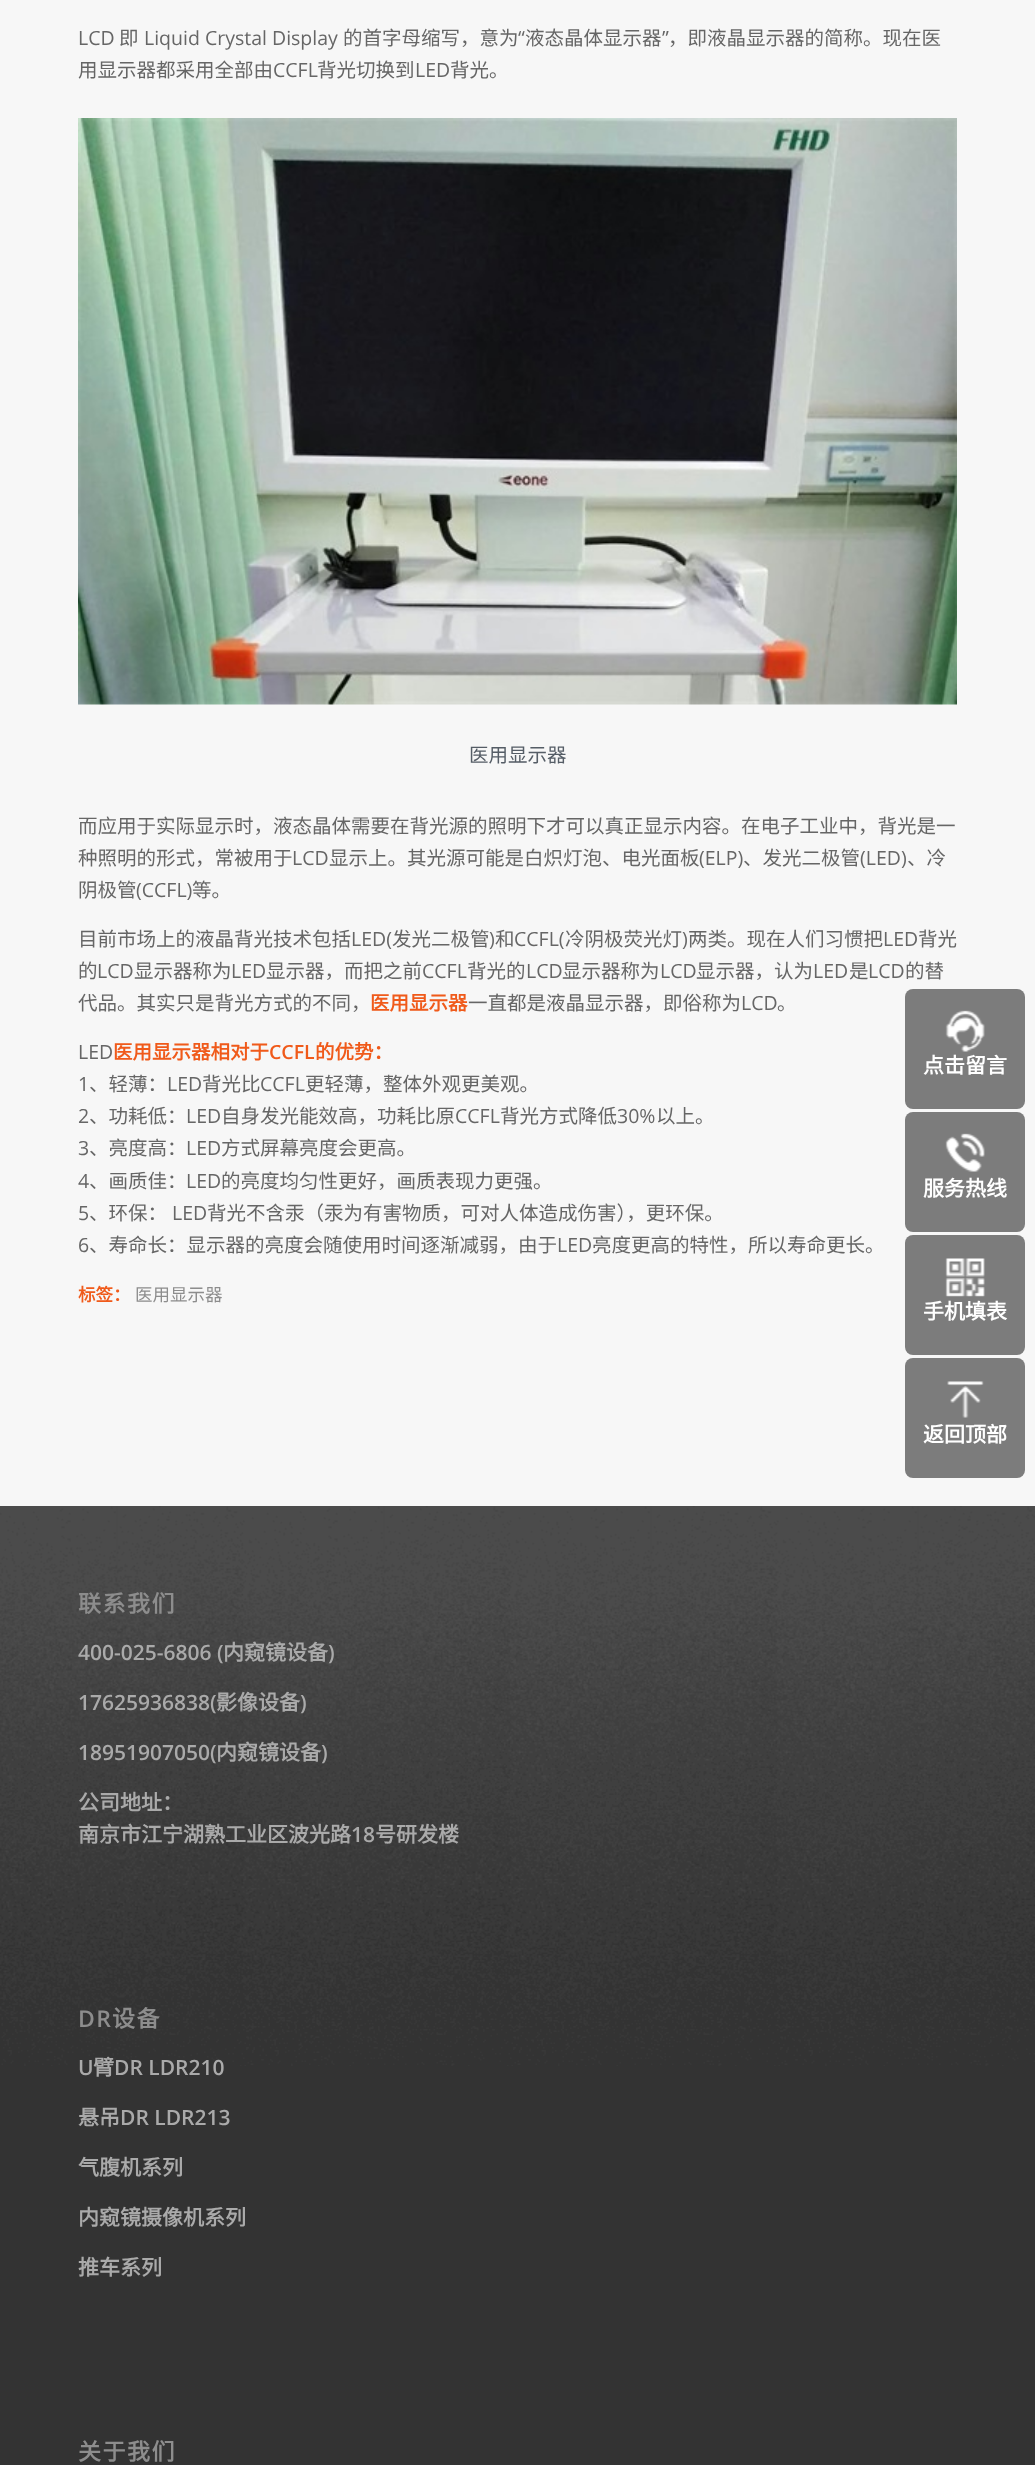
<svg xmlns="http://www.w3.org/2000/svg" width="1035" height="2465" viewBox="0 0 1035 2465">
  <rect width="100%" height="100%" fill="#f7f7f7"/>
  <text x="78" y="45" font-family="Open Sans" font-size="19.5" fill="#666666">LCD</text>
  <text x="119" y="45" font-family="Noto Sans CJK SC" font-size="19.5" fill="#666666">即</text>
  <text x="144" y="45" font-family="Open Sans" font-size="19.5" fill="#666666">Liquid Crystal Display</text>
  <text x="343" y="45" font-family="Noto Sans CJK SC" font-size="19.5" fill="#666666">的首字母缩写，意为</text>
  <text x="518" y="45" font-family="Open Sans" font-size="19.5" fill="#666666">“</text>
  <text x="525" y="45" font-family="Noto Sans CJK SC" font-size="19.5" fill="#666666">液态晶体显示器</text>
  <text x="662" y="45" font-family="Open Sans" font-size="19.5" fill="#666666">”</text>
  <text x="668" y="45" font-family="Noto Sans CJK SC" font-size="19.5" fill="#666666">，即液晶显示器的简称。现在医</text>
  <text x="78" y="77" font-family="Noto Sans CJK SC" font-size="19.5" fill="#666666">用显示器都采用全部由</text>
  <text x="273" y="77" font-family="Open Sans" font-size="19.5" fill="#666666">CCFL</text>
  <text x="317" y="77" font-family="Noto Sans CJK SC" font-size="19.5" fill="#666666">背光切换到</text>
  <text x="415" y="77" font-family="Open Sans" font-size="19.5" fill="#666666">LED</text>
  <text x="450" y="77" font-family="Noto Sans CJK SC" font-size="19.5" fill="#666666">背光。</text>
  <image x="78" y="118" width="879" height="587" href="img1.png"/>
  <text x="469" y="762" font-family="Noto Sans CJK SC" font-size="19.5" fill="#555d66">医用显示器</text>
  <text x="78" y="833" font-family="Noto Sans CJK SC" font-size="19.5" fill="#666666">而应用于实际显示时，液态晶体需要在背光源的照明下才可以真正显示内容。在电子工业中，背光是一</text>
  <text x="78" y="865" font-family="Noto Sans CJK SC" font-size="19.5" fill="#666666">种照明的形式，常被用于</text>
  <text x="292" y="865" font-family="Open Sans" font-size="19.5" fill="#666666">LCD</text>
  <text x="329" y="865" font-family="Noto Sans CJK SC" font-size="19.5" fill="#666666">显示上。其光源可能是白炽灯泡、电光面板</text>
  <text x="699" y="865" font-family="Open Sans" font-size="19.5" fill="#666666">(ELP)</text>
  <text x="743" y="865" font-family="Noto Sans CJK SC" font-size="19.5" fill="#666666">、发光二极管</text>
  <text x="860" y="865" font-family="Open Sans" font-size="19.5" fill="#666666">(LED)</text>
  <text x="907" y="865" font-family="Noto Sans CJK SC" font-size="19.5" fill="#666666">、冷</text>
  <text x="78" y="897" font-family="Noto Sans CJK SC" font-size="19.5" fill="#666666">阴极管</text>
  <text x="136" y="897" font-family="Open Sans" font-size="19.5" fill="#666666">(CCFL)</text>
  <text x="192" y="897" font-family="Noto Sans CJK SC" font-size="19.5" fill="#666666">等。</text>
  <text x="78" y="946" font-family="Noto Sans CJK SC" font-size="19.5" fill="#666666">目前市场上的液晶背光技术包括</text>
  <text x="351" y="946" font-family="Open Sans" font-size="19.5" fill="#666666">LED(</text>
  <text x="392" y="946" font-family="Noto Sans CJK SC" font-size="19.5" fill="#666666">发光二极管</text>
  <text x="489" y="946" font-family="Open Sans" font-size="19.5" fill="#666666">)</text>
  <text x="495" y="946" font-family="Noto Sans CJK SC" font-size="19.5" fill="#666666">和</text>
  <text x="514" y="946" font-family="Open Sans" font-size="19.5" fill="#666666">CCFL(</text>
  <text x="565" y="946" font-family="Noto Sans CJK SC" font-size="19.5" fill="#666666">冷阴极荧光灯</text>
  <text x="682" y="946" font-family="Open Sans" font-size="19.5" fill="#666666">)</text>
  <text x="688" y="946" font-family="Noto Sans CJK SC" font-size="19.5" fill="#666666">两类。现在人们习惯把</text>
  <text x="883" y="946" font-family="Open Sans" font-size="19.5" fill="#666666">LED</text>
  <text x="918" y="946" font-family="Noto Sans CJK SC" font-size="19.5" fill="#666666">背光</text>
  <text x="78" y="978" font-family="Noto Sans CJK SC" font-size="19.5" fill="#666666">的</text>
  <text x="97" y="978" font-family="Open Sans" font-size="19.5" fill="#666666">LCD</text>
  <text x="134" y="978" font-family="Noto Sans CJK SC" font-size="19.5" fill="#666666">显示器称为</text>
  <text x="231" y="978" font-family="Open Sans" font-size="19.5" fill="#666666">LED</text>
  <text x="266" y="978" font-family="Noto Sans CJK SC" font-size="19.5" fill="#666666">显示器，而把之前</text>
  <text x="422" y="978" font-family="Open Sans" font-size="19.5" fill="#666666">CCFL</text>
  <text x="467" y="978" font-family="Noto Sans CJK SC" font-size="19.5" fill="#666666">背光的</text>
  <text x="526" y="978" font-family="Open Sans" font-size="19.5" fill="#666666">LCD</text>
  <text x="562" y="978" font-family="Noto Sans CJK SC" font-size="19.5" fill="#666666">显示器称为</text>
  <text x="660" y="978" font-family="Open Sans" font-size="19.5" fill="#666666">LCD</text>
  <text x="696" y="978" font-family="Noto Sans CJK SC" font-size="19.5" fill="#666666">显示器，认为</text>
  <text x="813" y="978" font-family="Open Sans" font-size="19.5" fill="#666666">LED</text>
  <text x="849" y="978" font-family="Noto Sans CJK SC" font-size="19.5" fill="#666666">是</text>
  <text x="868" y="978" font-family="Open Sans" font-size="19.5" fill="#666666">LCD</text>
  <text x="905" y="978" font-family="Noto Sans CJK SC" font-size="19.5" fill="#666666">的替</text>
  <text x="78" y="1010" font-family="Noto Sans CJK SC" font-size="19.5" fill="#666666">代品。其实只是背光方式的不同，</text>
  <text x="370" y="1010" font-family="Noto Sans CJK SC" font-size="19.5" font-weight="bold" fill="#f05a1a">医用显示器</text>
  <text x="468" y="1010" font-family="Noto Sans CJK SC" font-size="19.5" fill="#666666">一直都是液晶显示器，即俗称为</text>
  <text x="741" y="1010" font-family="Open Sans" font-size="19.5" fill="#666666">LCD</text>
  <text x="777" y="1010" font-family="Noto Sans CJK SC" font-size="19.5" fill="#666666">。</text>
  <text x="78" y="1059" font-family="Open Sans" font-size="19.5" fill="#666666">LED</text>
  <text x="113" y="1059" font-family="Noto Sans CJK SC" font-size="19.5" font-weight="bold" fill="#f05a1a">医用显示器相对于</text>
  <text x="269" y="1059" font-family="Open Sans" font-size="19.5" font-weight="600" fill="#f05a1a">CCFL</text>
  <text x="315" y="1059" font-family="Noto Sans CJK SC" font-size="19.5" font-weight="bold" fill="#f05a1a">的优势：</text>
  <text x="78" y="1091" font-family="Open Sans" font-size="19.5" fill="#666666">1</text>
  <text x="89" y="1091" font-family="Noto Sans CJK SC" font-size="19.5" fill="#666666">、轻薄：</text>
  <text x="167" y="1091" font-family="Open Sans" font-size="19.5" fill="#666666">LED</text>
  <text x="202" y="1091" font-family="Noto Sans CJK SC" font-size="19.5" fill="#666666">背光比</text>
  <text x="260" y="1091" font-family="Open Sans" font-size="19.5" fill="#666666">CCFL</text>
  <text x="305" y="1091" font-family="Noto Sans CJK SC" font-size="19.5" fill="#666666">更轻薄，整体外观更美观。</text>
  <text x="78" y="1123" font-family="Open Sans" font-size="19.5" fill="#666666">2</text>
  <text x="89" y="1123" font-family="Noto Sans CJK SC" font-size="19.5" fill="#666666">、功耗低：</text>
  <text x="186" y="1123" font-family="Open Sans" font-size="19.5" fill="#666666">LED</text>
  <text x="221" y="1123" font-family="Noto Sans CJK SC" font-size="19.5" fill="#666666">自身发光能效高，功耗比原</text>
  <text x="455" y="1123" font-family="Open Sans" font-size="19.5" fill="#666666">CCFL</text>
  <text x="500" y="1123" font-family="Noto Sans CJK SC" font-size="19.5" fill="#666666">背光方式降低</text>
  <text x="617" y="1123" font-family="Open Sans" font-size="19.5" fill="#666666">30%</text>
  <text x="656" y="1123" font-family="Noto Sans CJK SC" font-size="19.5" fill="#666666">以上。</text>
  <text x="78" y="1155" font-family="Open Sans" font-size="19.5" fill="#666666">3</text>
  <text x="89" y="1155" font-family="Noto Sans CJK SC" font-size="19.5" fill="#666666">、亮度高：</text>
  <text x="186" y="1155" font-family="Open Sans" font-size="19.5" fill="#666666">LED</text>
  <text x="221" y="1155" font-family="Noto Sans CJK SC" font-size="19.5" fill="#666666">方式屏幕亮度会更高。</text>
  <text x="78" y="1188" font-family="Open Sans" font-size="19.5" fill="#666666">4</text>
  <text x="89" y="1188" font-family="Noto Sans CJK SC" font-size="19.5" fill="#666666">、画质佳：</text>
  <text x="186" y="1188" font-family="Open Sans" font-size="19.5" fill="#666666">LED</text>
  <text x="221" y="1188" font-family="Noto Sans CJK SC" font-size="19.5" fill="#666666">的亮度均匀性更好，画质表现力更强。</text>
  <text x="78" y="1220" font-family="Open Sans" font-size="19.5" fill="#666666">5</text>
  <text x="89" y="1220" font-family="Noto Sans CJK SC" font-size="19.5" fill="#666666">、环保：</text>
  <text x="172" y="1220" font-family="Open Sans" font-size="19.5" fill="#666666">LED</text>
  <text x="207" y="1220" font-family="Noto Sans CJK SC" font-size="19.5" fill="#666666">背光不含汞（汞为有害物质，可对人体造成伤害），更环保。</text>
  <text x="78" y="1252" font-family="Open Sans" font-size="19.5" fill="#666666">6</text>
  <text x="89" y="1252" font-family="Noto Sans CJK SC" font-size="19.5" fill="#666666">、寿命长：显示器的亮度会随使用时间逐渐减弱，由于</text>
  <text x="557" y="1252" font-family="Open Sans" font-size="19.5" fill="#666666">LED</text>
  <text x="592" y="1252" font-family="Noto Sans CJK SC" font-size="19.5" fill="#666666">亮度更高的特性，所以寿命更长。</text>
  <text x="78" y="1301" font-family="Noto Sans CJK SC" font-size="17.5" font-weight="bold" fill="#f05a1a">标签：</text>
  <text x="135" y="1301" font-family="Noto Sans CJK SC" font-size="17.5" fill="#8d8d8d">医用显示器</text>
  <rect x="0" y="1506" width="1035" height="959" fill="#333333"/>
  <image x="0" y="1506" width="1035" height="560" href="img2.png"/>
  <text x="78" y="1612" font-family="Noto Sans CJK SC" font-size="23" font-weight="bold" letter-spacing="1.5" fill="#8d8d8d">联系我们</text>
  <text x="78" y="1660" font-family="Open Sans" font-size="21" font-weight="600" fill="#aaaaaa">400-025-6806 (</text>
  <text x="223" y="1660" font-family="Noto Sans CJK SC" font-size="21" font-weight="bold" fill="#aaaaaa">内窥镜设备</text>
  <text x="328" y="1660" font-family="Open Sans" font-size="21" font-weight="600" fill="#aaaaaa">)</text>
  <text x="78" y="1710" font-family="Open Sans" font-size="21" font-weight="600" fill="#aaaaaa">17625936838(</text>
  <text x="216" y="1710" font-family="Noto Sans CJK SC" font-size="21" font-weight="bold" fill="#aaaaaa">影像设备</text>
  <text x="300" y="1710" font-family="Open Sans" font-size="21" font-weight="600" fill="#aaaaaa">)</text>
  <text x="78" y="1760" font-family="Open Sans" font-size="21" font-weight="600" fill="#aaaaaa">18951907050(</text>
  <text x="216" y="1760" font-family="Noto Sans CJK SC" font-size="21" font-weight="bold" fill="#aaaaaa">内窥镜设备</text>
  <text x="321" y="1760" font-family="Open Sans" font-size="21" font-weight="600" fill="#aaaaaa">)</text>
  <text x="78" y="1810" font-family="Noto Sans CJK SC" font-size="21" font-weight="bold" fill="#aaaaaa">公司地址：</text>
  <text x="78" y="1842" font-family="Noto Sans CJK SC" font-size="21" font-weight="bold" fill="#aaaaaa">南京市江宁湖熟工业区波光路</text>
  <text x="351" y="1842" font-family="Open Sans" font-size="21" font-weight="600" fill="#aaaaaa">18</text>
  <text x="375" y="1842" font-family="Noto Sans CJK SC" font-size="21" font-weight="bold" fill="#aaaaaa">号研发楼</text>
  <text x="78" y="2027" font-family="Open Sans" font-size="23" font-weight="600" letter-spacing="1.5" fill="#8d8d8d">DR</text>
  <text x="112" y="2027" font-family="Noto Sans CJK SC" font-size="23" font-weight="bold" letter-spacing="1.5" fill="#8d8d8d">设备</text>
  <text x="78" y="2075" font-family="Open Sans" font-size="21" font-weight="600" fill="#aaaaaa">U</text>
  <text x="93" y="2075" font-family="Noto Sans CJK SC" font-size="21" font-weight="bold" fill="#aaaaaa">臂</text>
  <text x="114" y="2075" font-family="Open Sans" font-size="21" font-weight="600" fill="#aaaaaa">DR LDR210</text>
  <text x="78" y="2125" font-family="Noto Sans CJK SC" font-size="21" font-weight="bold" fill="#aaaaaa">悬吊</text>
  <text x="120" y="2125" font-family="Open Sans" font-size="21" font-weight="600" fill="#aaaaaa">DR LDR213</text>
  <text x="78" y="2175" font-family="Noto Sans CJK SC" font-size="21" font-weight="bold" fill="#aaaaaa">气腹机系列</text>
  <text x="78" y="2225" font-family="Noto Sans CJK SC" font-size="21" font-weight="bold" fill="#aaaaaa">内窥镜摄像机系列</text>
  <text x="78" y="2275" font-family="Noto Sans CJK SC" font-size="21" font-weight="bold" fill="#aaaaaa">推车系列</text>
  <text x="78" y="2460" font-family="Noto Sans CJK SC" font-size="23" font-weight="bold" letter-spacing="1.5" fill="#8d8d8d">关于我们</text>
  <rect x="905" y="989" width="120" height="120" rx="8" fill="#7c7c7c"/>
  <image x="945" y="1010" width="40" height="42" href="img3.png"/>
  <text x="923" y="1073" font-family="Noto Sans CJK SC" font-size="21" font-weight="bold" fill="#ffffff">点击留言</text>
  <rect x="905" y="1112" width="120" height="120" rx="8" fill="#7c7c7c"/>
  <image x="945" y="1133" width="40" height="39" href="img4.png"/>
  <text x="923" y="1196" font-family="Noto Sans CJK SC" font-size="21" font-weight="bold" fill="#ffffff">服务热线</text>
  <rect x="905" y="1235" width="120" height="120" rx="8" fill="#7c7c7c"/>
  <image x="945" y="1258" width="40" height="39" href="img5.png"/>
  <text x="923" y="1319" font-family="Noto Sans CJK SC" font-size="21" font-weight="bold" fill="#ffffff">手机填表</text>
  <rect x="905" y="1358" width="120" height="120" rx="8" fill="#7c7c7c"/>
  <image x="947" y="1381" width="37" height="37" href="img6.png"/>
  <text x="923" y="1442" font-family="Noto Sans CJK SC" font-size="21" font-weight="bold" fill="#ffffff">返回顶部</text>
</svg>
